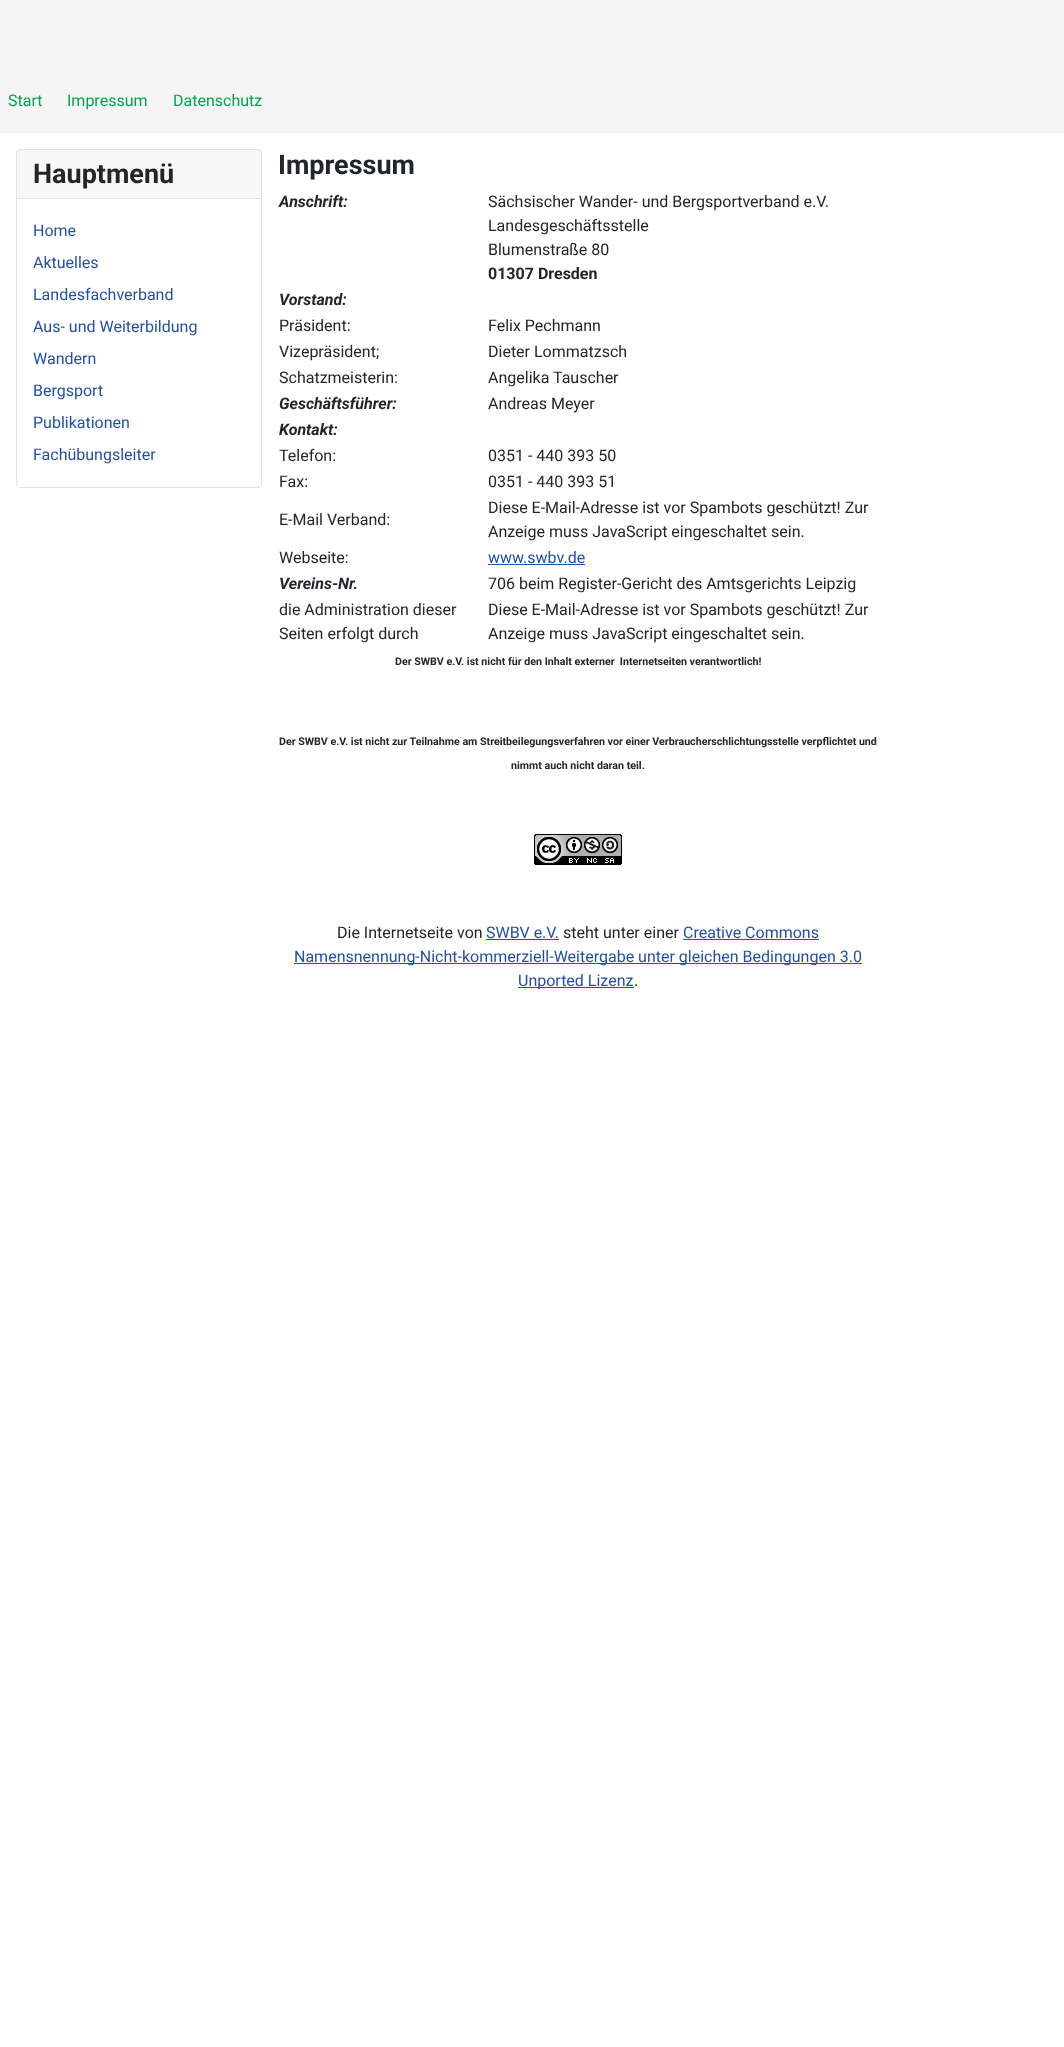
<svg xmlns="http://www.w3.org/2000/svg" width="1064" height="2047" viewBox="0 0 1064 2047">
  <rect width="100%" height="100%" fill="#ffffff"/>
  <rect x="0" y="0" width="1064" height="133" fill="#f5f5f5"/>
  <text x="8" y="106" font-family="Roboto" font-size="16" fill="#00a550">Start</text>
  <text x="67" y="106" font-family="Roboto" font-size="16" fill="#00a550">Impressum</text>
  <text x="173" y="106" font-family="Roboto" font-size="16" fill="#00a550">Datenschutz</text>
  <rect x="16.5" y="149.5" width="245" height="338" rx="3.5" fill="none" stroke="#dfe3e7"/>
  <rect x="17" y="150" width="244" height="48" fill="#22262a" fill-opacity="0.03"/>
  <rect x="17" y="198" width="244" height="1" fill="#dfe3e7"/>
  <text x="33" y="183" font-family="Roboto" font-size="27" font-weight="bold" fill="#22262a">Hauptmenü</text>
  <text x="33" y="236" font-family="Roboto" font-size="16" fill="#224faa">Home</text>
  <text x="33" y="268" font-family="Roboto" font-size="16" fill="#224faa">Aktuelles</text>
  <text x="33" y="300" font-family="Roboto" font-size="16" fill="#224faa">Landesfachverband</text>
  <text x="33" y="332" font-family="Roboto" font-size="16" fill="#224faa">Aus- und Weiterbildung</text>
  <text x="33" y="364" font-family="Roboto" font-size="16" fill="#224faa">Wandern</text>
  <text x="33" y="396" font-family="Roboto" font-size="16" fill="#224faa">Bergsport</text>
  <text x="33" y="428" font-family="Roboto" font-size="16" fill="#224faa">Publikationen</text>
  <text x="33" y="460" font-family="Roboto" font-size="16" fill="#224faa">Fachübungsleiter</text>
  <text x="278" y="174" font-family="Roboto" font-size="27" font-weight="bold" fill="#22262a">Impressum</text>
  <text x="279" y="207" font-family="Roboto" font-size="16" font-weight="bold" font-style="italic" fill="#22262a">Anschrift:</text>
  <text x="488" y="207" font-family="Roboto" font-size="16" fill="#22262a">Sächsischer Wander- und Bergsportverband e.V.</text>
  <text x="488" y="231" font-family="Roboto" font-size="16" fill="#22262a">Landesgeschäftsstelle</text>
  <text x="488" y="255" font-family="Roboto" font-size="16" fill="#22262a">Blumenstraße 80</text>
  <text x="488" y="279" font-family="Roboto" font-size="16" font-weight="bold" fill="#22262a">01307 Dresden</text>
  <text x="279" y="305" font-family="Roboto" font-size="16" font-weight="bold" font-style="italic" fill="#22262a">Vorstand:</text>
  <text x="279" y="331" font-family="Roboto" font-size="16" fill="#22262a">Präsident:</text>
  <text x="488" y="331" font-family="Roboto" font-size="16" fill="#22262a">Felix Pechmann</text>
  <text x="279" y="357" font-family="Roboto" font-size="16" fill="#22262a">Vizepräsident;</text>
  <text x="488" y="357" font-family="Roboto" font-size="16" fill="#22262a">Dieter Lommatzsch</text>
  <text x="279" y="383" font-family="Roboto" font-size="16" fill="#22262a">Schatzmeisterin:</text>
  <text x="488" y="383" font-family="Roboto" font-size="16" fill="#22262a">Angelika Tauscher</text>
  <text x="279" y="409" font-family="Roboto" font-size="16" font-weight="bold" font-style="italic" fill="#22262a">Geschäftsführer:</text>
  <text x="488" y="409" font-family="Roboto" font-size="16" fill="#22262a">Andreas Meyer</text>
  <text x="279" y="435" font-family="Roboto" font-size="16" font-weight="bold" font-style="italic" fill="#22262a">Kontakt:</text>
  <text x="279" y="461" font-family="Roboto" font-size="16" fill="#22262a">Telefon:</text>
  <text x="488" y="461" font-family="Roboto" font-size="16" fill="#22262a">0351 - 440 393 50</text>
  <text x="279" y="487" font-family="Roboto" font-size="16" fill="#22262a">Fax:</text>
  <text x="488" y="487" font-family="Roboto" font-size="16" fill="#22262a">0351 - 440 393 51</text>
  <text x="279" y="525" font-family="Roboto" font-size="16" fill="#22262a">E-Mail Verband:</text>
  <text x="488" y="513" font-family="Roboto" font-size="16" fill="#22262a">Diese E-Mail-Adresse ist vor Spambots geschützt! Zur</text>
  <text x="488" y="537" font-family="Roboto" font-size="16" fill="#22262a">Anzeige muss JavaScript eingeschaltet sein.</text>
  <text x="279" y="563" font-family="Roboto" font-size="16" fill="#22262a">Webseite:</text>
  <text x="488" y="563" font-family="Roboto" font-size="16" fill="#224faa">www.swbv.de</text>
  <rect x="488" y="564" width="97" height="1" fill="#224faa"/>
  <text x="279" y="589" font-family="Roboto" font-size="16" font-weight="bold" font-style="italic" fill="#22262a">Vereins-Nr.</text>
  <text x="488" y="589" font-family="Roboto" font-size="16" fill="#22262a">706 beim Register-Gericht des Amtsgerichts Leipzig</text>
  <text x="279" y="615" font-family="Roboto" font-size="16" fill="#22262a">die Administration dieser</text>
  <text x="279" y="639" font-family="Roboto" font-size="16" fill="#22262a">Seiten erfolgt durch</text>
  <text x="488" y="615" font-family="Roboto" font-size="16" fill="#22262a">Diese E-Mail-Adresse ist vor Spambots geschützt! Zur</text>
  <text x="488" y="639" font-family="Roboto" font-size="16" fill="#22262a">Anzeige muss JavaScript eingeschaltet sein.</text>
  <text x="395" y="665" font-family="Roboto" font-size="10.67" font-weight="bold" fill="#22262a" xml:space="preserve">Der SWBV e.V. ist nicht für den Inhalt externer  Internetseiten verantwortlich!</text>
  <text x="279" y="745" font-family="Roboto" font-size="10.67" font-weight="bold" fill="#22262a">Der SWBV e.V. ist nicht zur Teilnahme am Streitbeilegungsverfahren vor einer Verbraucherschlichtungsstelle verpflichtet und</text>
  <text x="511" y="769" font-family="Roboto" font-size="10.67" font-weight="bold" fill="#22262a">nimmt auch nicht daran teil.</text>
  <image x="534" y="834" width="88" height="31" href="img1.png"/>
  <text x="337" y="938" font-family="Roboto" font-size="16" fill="#22262a">Die Internetseite von</text>
  <text x="486" y="938" font-family="Roboto" font-size="16" fill="#224faa">SWBV e.V.</text>
  <rect x="486" y="939" width="73" height="1" fill="#224faa"/>
  <text x="563" y="938" font-family="Roboto" font-size="16" fill="#22262a">steht unter einer</text>
  <text x="683" y="938" font-family="Roboto" font-size="16" fill="#224faa">Creative Commons</text>
  <rect x="683" y="939" width="136" height="1" fill="#224faa"/>
  <rect x="294" y="963" width="568" height="1" fill="#224faa"/>
  <text x="294" y="962" font-family="Roboto" font-size="16" fill="#224faa">Namensnennung-Nicht-kommerziell-Weitergabe unter gleichen Bedingungen 3.0</text>
  <rect x="518" y="987" width="116" height="1" fill="#224faa"/>
  <text x="518" y="986" font-family="Roboto" font-size="16" fill="#224faa">Unported Lizenz</text>
  <text x="634" y="986" font-family="Roboto" font-size="16" fill="#22262a">.</text>
</svg>
